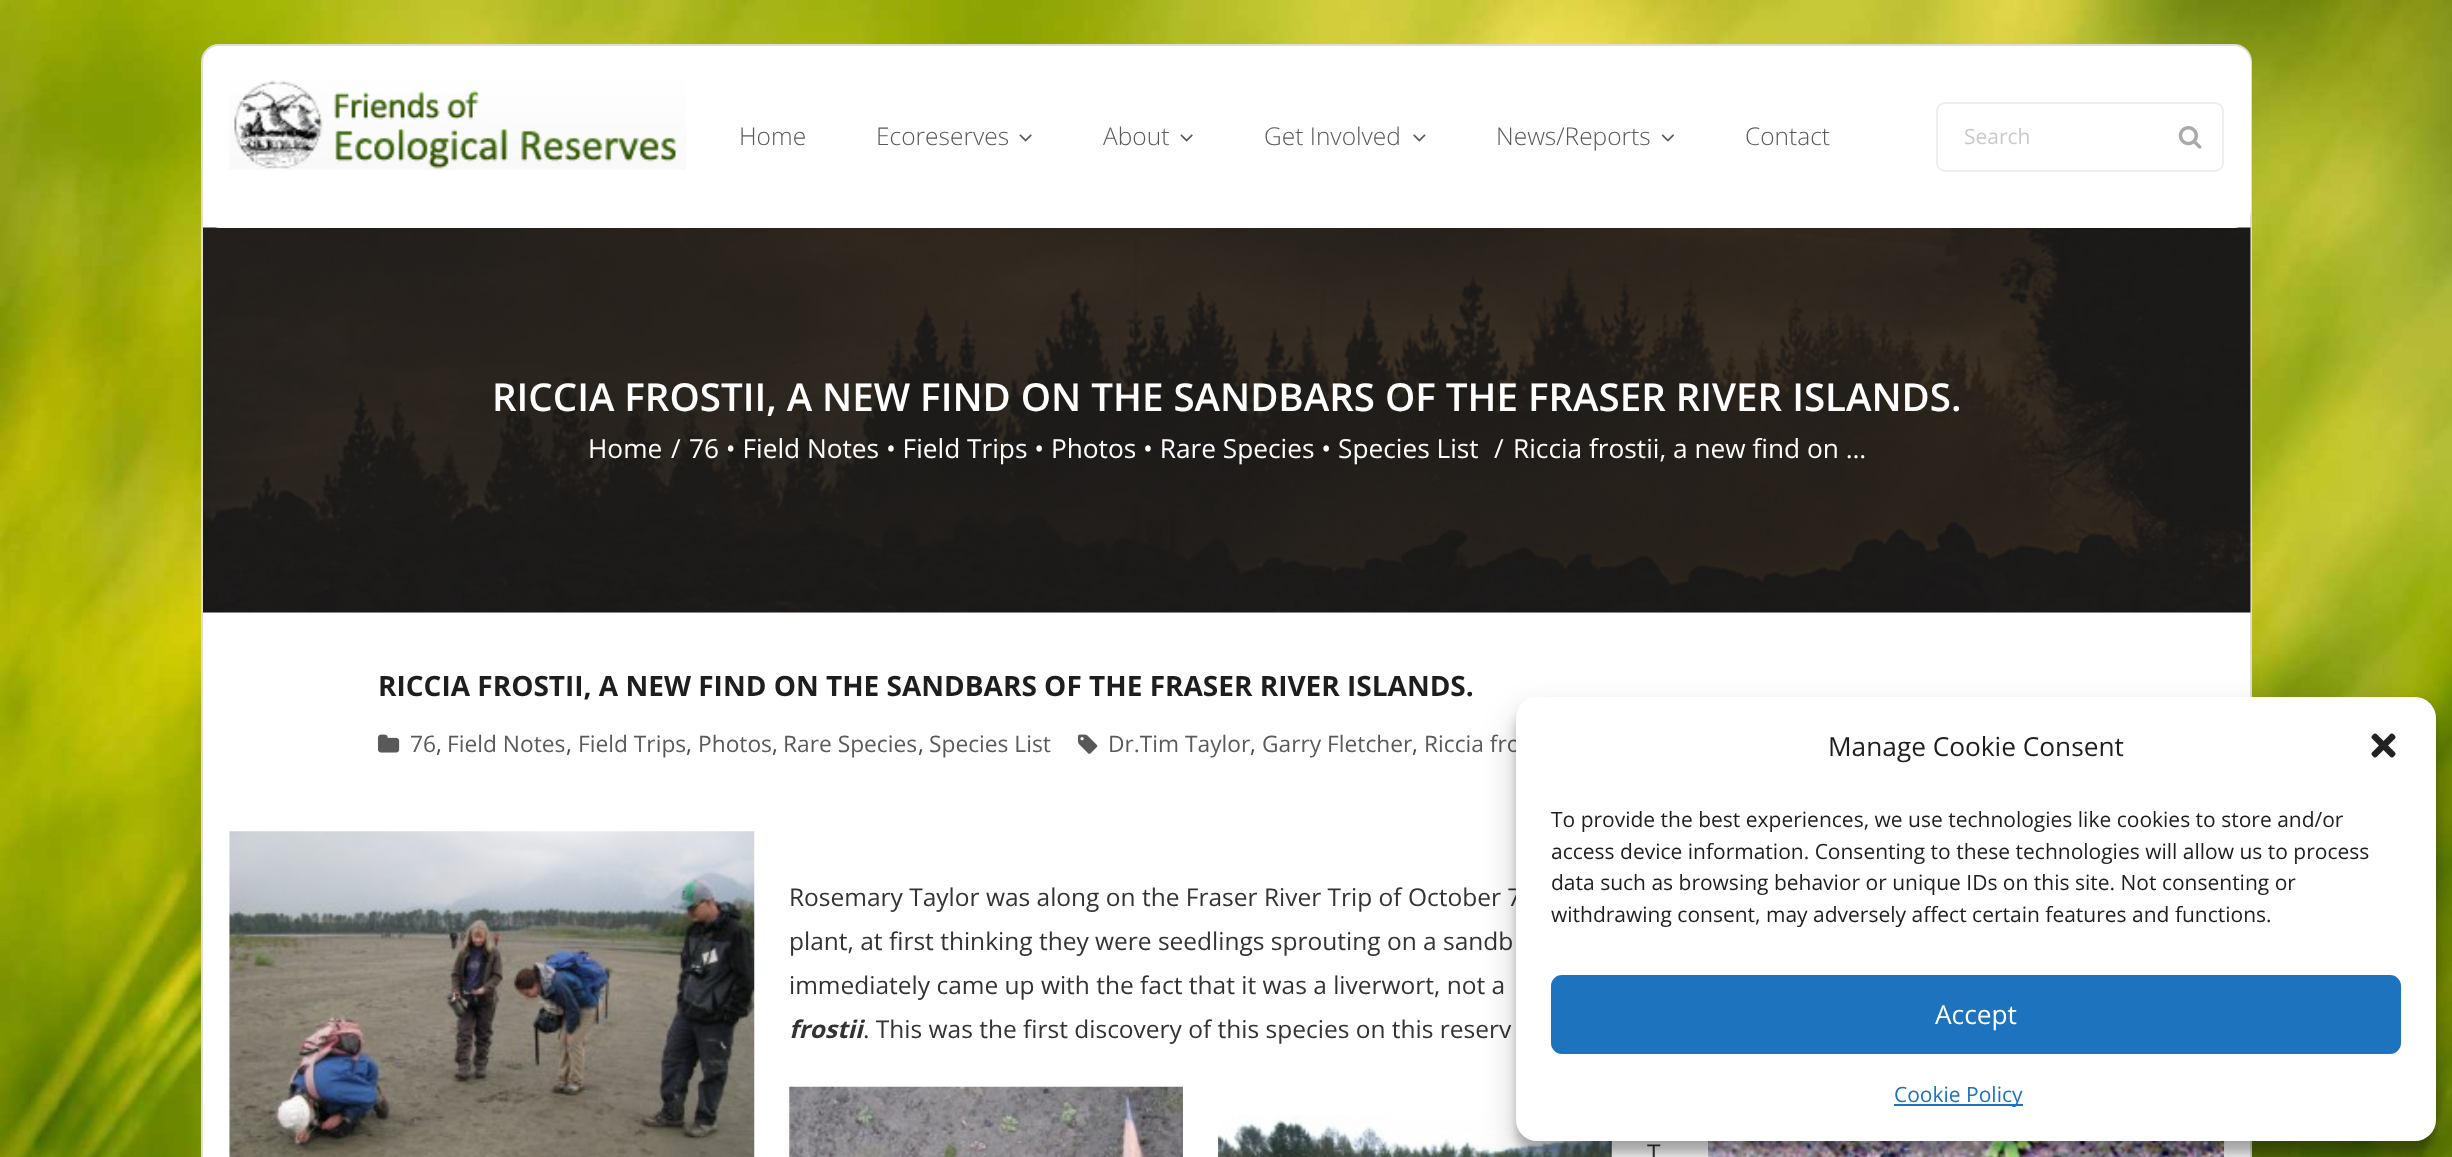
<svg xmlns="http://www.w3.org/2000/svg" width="2452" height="1157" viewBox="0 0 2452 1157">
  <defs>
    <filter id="blur1" x="-50%" y="-200%" width="200%" height="500%"><feGaussianBlur stdDeviation="5"/></filter>
    <filter id="blur2" x="-50%" y="-200%" width="200%" height="500%"><feGaussianBlur stdDeviation="17.5"/></filter>
  </defs>
  <rect width="100%" height="100%" fill="#ffffff"/>
  <image x="0" y="0" width="2452" height="1157" href="img1.png"/>
  <rect x="202" y="45" width="2049" height="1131" rx="17" fill="#ffffff" stroke="#dddddd" stroke-width="2"/>
  <rect x="203" y="228" width="2048" height="385" fill="#efeeee"/>
  <image x="203" y="227" width="2048" height="386" href="img7.png"/>
  <rect x="203" y="46" width="2048" height="182" rx="18" fill="#ffffff"/>
  <image x="229" y="80" width="457" height="90" href="img2.png"/>
  <text x="739" y="145" font-family="Open Sans" font-size="24.5" font-weight="300" fill="#5a5a5a">Home</text>
  <text x="876" y="145" font-family="Open Sans" font-size="24.5" font-weight="300" fill="#5a5a5a">Ecoreserves</text>
  <image x="1019" y="134" width="13" height="8" href="img3.png"/>
  <text x="1103" y="145" font-family="Open Sans" font-size="24.5" font-weight="300" fill="#5a5a5a">About</text>
  <image x="1180" y="134" width="13" height="8" href="img3.png"/>
  <text x="1264" y="145" font-family="Open Sans" font-size="24.5" font-weight="300" fill="#5a5a5a">Get Involved</text>
  <image x="1413" y="134" width="13" height="8" href="img4.png"/>
  <text x="1496" y="145" font-family="Open Sans" font-size="24.5" font-weight="300" fill="#5a5a5a">News/Reports</text>
  <image x="1661" y="134" width="13" height="8" href="img5.png"/>
  <text x="1745" y="145" font-family="Open Sans" font-size="24.5" font-weight="300" fill="#5a5a5a">Contact</text>
  <rect x="1937" y="103" width="286" height="68" rx="8" fill="none" stroke="#eeeeee" stroke-width="2"/>
  <text x="1964" y="144" font-family="Open Sans" font-size="21" fill="#cacaca">Search</text>
  <image x="2178" y="126" width="24" height="23" href="img6.png"/>
  <text x="492" y="411" font-family="Open Sans" font-size="38.5" font-weight="600" fill="#ffffff">RICCIA FROSTII, A NEW FIND ON THE SANDBARS OF THE FRASER RIVER ISLANDS.</text>
  <text x="588" y="458" font-family="Open Sans" font-size="26.25" fill="#ffffff">Home</text>
  <text x="671" y="458" font-family="Open Sans" font-size="26.25" fill="#ffffff">/</text>
  <text x="689" y="458" font-family="Open Sans" font-size="26.25" fill="#ffffff">76 • Field Notes • Field Trips • Photos • Rare Species • Species List</text>
  <text x="1494" y="458" font-family="Open Sans" font-size="26.25" fill="#ffffff">/</text>
  <text x="1513" y="458" font-family="Open Sans" font-size="26.25" fill="#ffffff">Riccia frostii, a new find on …</text>
  <text x="378" y="696" font-family="Open Sans" font-size="28" font-weight="bold" fill="#1e1e1e">RICCIA FROSTII, A NEW FIND ON THE SANDBARS OF THE FRASER RIVER ISLANDS.</text>
  <image x="378" y="734" width="22" height="19" href="img8.png"/>
  <text x="410" y="752" font-family="Open Sans" font-size="22.75" fill="#5a5a5a">76</text>
  <text x="436" y="752" font-family="Open Sans" font-size="22.75" fill="#474747">,</text>
  <text x="447" y="752" font-family="Open Sans" font-size="22.75" fill="#5a5a5a">Field Notes</text>
  <text x="566" y="752" font-family="Open Sans" font-size="22.75" fill="#474747">,</text>
  <text x="578" y="752" font-family="Open Sans" font-size="22.75" fill="#5a5a5a">Field Trips</text>
  <text x="686" y="752" font-family="Open Sans" font-size="22.75" fill="#474747">,</text>
  <text x="698" y="752" font-family="Open Sans" font-size="22.75" fill="#5a5a5a">Photos</text>
  <text x="772" y="752" font-family="Open Sans" font-size="22.75" fill="#474747">,</text>
  <text x="783" y="752" font-family="Open Sans" font-size="22.75" fill="#5a5a5a">Rare Species</text>
  <text x="918" y="752" font-family="Open Sans" font-size="22.75" fill="#474747">,</text>
  <text x="929" y="752" font-family="Open Sans" font-size="22.75" fill="#5a5a5a">Species List</text>
  <image x="1078" y="734" width="20" height="20" href="img9.png"/>
  <text x="1108" y="752" font-family="Open Sans" font-size="22.75" fill="#5a5a5a">Dr.Tim Taylor</text>
  <text x="1250" y="752" font-family="Open Sans" font-size="22.75" fill="#474747">,</text>
  <text x="1262" y="752" font-family="Open Sans" font-size="22.75" fill="#5a5a5a">Garry Fletcher</text>
  <text x="1412" y="752" font-family="Open Sans" font-size="22.75" fill="#474747">,</text>
  <text x="1424" y="752" font-family="Open Sans" font-size="22.75" fill="#5a5a5a">Riccia fro</text>
  <image x="229" y="831" width="526" height="326" href="img10.png"/>
  <text x="789" y="906" font-family="Open Sans" font-size="24.5" fill="#333333">Rosemary Taylor was along on the Fraser River Trip of October 7</text>
  <text x="789" y="950" font-family="Open Sans" font-size="24.5" fill="#333333">plant, at first thinking they were seedlings sprouting on a sandb</text>
  <text x="789" y="994" font-family="Open Sans" font-size="24.5" fill="#333333">immediately came up with the fact that it was a liverwort, not a</text>
  <text x="789" y="1038" font-family="Open Sans" font-size="24.5" font-weight="bold" font-style="italic" fill="#333333">frostii</text>
  <text x="863" y="1038" font-family="Open Sans" font-size="24.5" fill="#333333">. This was the first discovery of this species on this reserv</text>
  <image x="789" y="1086" width="394" height="71" href="img11.png"/>
  <image x="1708" y="1141" width="517" height="16" href="img12.png"/>
  <image x="1218" y="1115" width="394" height="42" href="img13.png"/>
  <text x="1647" y="1162" font-family="Open Sans" font-size="24.5" fill="#333333">T</text>
  <rect x="1516" y="707" width="920" height="445" rx="21" fill="#000000" fill-opacity="0.23" filter="url(#blur1)"/>
  <rect x="1516" y="714" width="920" height="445" rx="21" fill="#000000" fill-opacity="0.19" filter="url(#blur2)"/>
  <rect x="1516" y="697" width="920" height="444" rx="21" fill="#ffffff"/>
  <text x="1828" y="756" font-family="Open Sans" font-size="26.25" fill="#1e1e1e">Manage Cookie Consent</text>
  <image x="2371" y="733" width="25" height="25" href="img14.png"/>
  <text x="1551" y="827" font-family="Open Sans" font-size="21" fill="#1e1e1e">To provide the best experiences, we use technologies like cookies to store and/or</text>
  <text x="1551" y="859" font-family="Open Sans" font-size="21" fill="#1e1e1e">access device information. Consenting to these technologies will allow us to process</text>
  <text x="1551" y="890" font-family="Open Sans" font-size="21" fill="#1e1e1e">data such as browsing behavior or unique IDs on this site. Not consenting or</text>
  <text x="1551" y="922" font-family="Open Sans" font-size="21" fill="#1e1e1e">withdrawing consent, may adversely affect certain features and functions.</text>
  <rect x="1552" y="976" width="848" height="77" rx="10" fill="#1e73be" stroke="#1e73be" stroke-width="2"/>
  <text x="1935" y="1024" font-family="Open Sans" font-size="26.25" fill="#ffffff">Accept</text>
  <rect x="1894" y="1104" width="129" height="2" fill="#1e73be"/>
  <text x="1894" y="1102" font-family="Open Sans" font-size="21" fill="#1e73be">Cookie Policy</text>
</svg>
